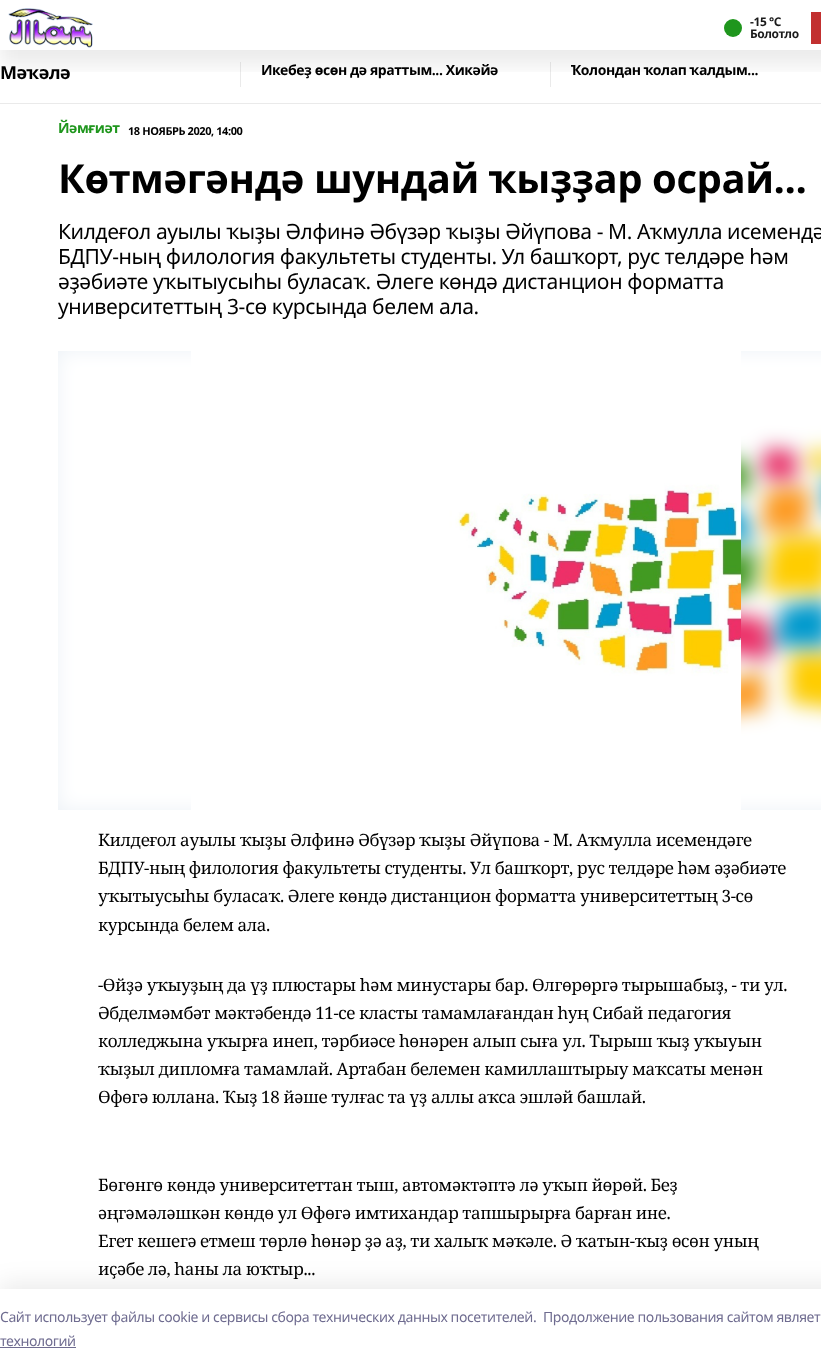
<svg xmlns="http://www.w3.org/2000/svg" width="821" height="1369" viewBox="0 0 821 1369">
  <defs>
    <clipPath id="clip1"><rect x="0" y="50" width="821" height="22"/></clipPath>
    <filter id="blur1" x="-50%" y="-200%" width="200%" height="500%"><feGaussianBlur stdDeviation="10"/></filter>
    <filter id="blur2" x="-50%" y="-200%" width="200%" height="500%"><feGaussianBlur stdDeviation="11.5"/></filter>
  </defs>
  <rect width="100%" height="100%" fill="#ffffff"/>
  <rect x="240" y="62" width="1" height="25" fill="#eaeaea"/>
  <rect x="550" y="62" width="1" height="25" fill="#eaeaea"/>
  <g clip-path="url(#clip1)">
    <rect x="0" y="15" width="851" height="50" fill="#000000" fill-opacity="0.08" filter="url(#blur1)"/>
  </g>
  <image x="8" y="8" width="85" height="40" href="img1.png"/>
  <circle cx="733" cy="28" r="9" fill="#1f961d"/>
  <text x="750" y="26" font-family="Noto Sans" font-size="12" font-weight="bold" letter-spacing="-0.42" fill="#1a1a1a">-15 °С</text>
  <text x="750" y="38" font-family="Noto Sans" font-size="12" font-weight="bold" letter-spacing="-0.42" fill="#1a1a1a">Болотло</text>
  <rect x="811" y="12" width="10" height="32" fill="#c23030"/>
  <rect x="0" y="103" width="821" height="1" fill="#eaeaea"/>
  <text x="0" y="79" font-family="Noto Sans" font-size="18" font-weight="bold" letter-spacing="-0.42" fill="#000000">Мәҡәлә</text>
  <text x="261" y="75" font-family="Noto Sans" font-size="14" font-weight="bold" letter-spacing="-0.42" fill="#000000">Икебеҙ өсөн дә яраттым... Хикәйә</text>
  <text x="571" y="75" font-family="Noto Sans" font-size="14" font-weight="bold" letter-spacing="-0.42" fill="#000000">Ҡолондан ҡолап ҡалдым...</text>
  <text x="58" y="133" font-family="Noto Sans" font-size="14" font-weight="bold" letter-spacing="-0.42" fill="#1f961d">Йәмғиәт</text>
  <text x="128" y="135" font-family="Noto Sans" font-size="11" font-weight="bold" letter-spacing="-0.42" fill="#000000">18 НОЯБРЬ 2020, 14:00</text>
  <text x="58" y="193" font-family="Noto Sans" font-size="40" font-weight="bold" letter-spacing="-0.42" fill="#000000">Көтмәгәндә шундай ҡыҙҙар осрай...</text>
  <text x="58" y="239" font-family="Noto Sans" font-size="21" letter-spacing="-0.42" fill="#000000">Килдеғол ауылы ҡыҙы Әлфинә Әбүзәр ҡыҙы Әйүпова - М. Аҡмулла исемендә</text>
  <text x="58" y="264" font-family="Noto Sans" font-size="21" letter-spacing="-0.42" fill="#000000">БДПУ-ның филология факультеты студенты. Ул башҡорт, рус телдәре һәм</text>
  <text x="58" y="289" font-family="Noto Sans" font-size="21" letter-spacing="-0.42" fill="#000000">әҙәбиәте уҡытыусыһы буласаҡ. Әлеге көндә дистанцион форматта</text>
  <text x="58" y="314" font-family="Noto Sans" font-size="21" letter-spacing="-0.42" fill="#000000">университеттың 3-сө курсында белем ала.</text>
  <rect x="58" y="351" width="763" height="459" fill="#edf2f7"/>
  <image x="58" y="351" width="763" height="459" href="img2.png"/>
  <image x="191" y="351" width="550" height="459" href="img3.png"/>
  <text x="98" y="846" font-family="Noto Serif" font-size="17" letter-spacing="-0.42" fill="#000000">Килдеғол ауылы ҡыҙы Әлфинә Әбүзәр ҡыҙы Әйүпова - М. Аҡмулла исемендәге</text>
  <text x="98" y="874" font-family="Noto Serif" font-size="17" letter-spacing="-0.42" fill="#000000">БДПУ-ның филология факультеты студенты. Ул башҡорт, рус телдәре һәм әҙәбиәте</text>
  <text x="98" y="902" font-family="Noto Serif" font-size="17" letter-spacing="-0.42" fill="#000000">уҡытыусыһы буласаҡ. Әлеге көндә дистанцион форматта университеттың 3-сө</text>
  <text x="98" y="931" font-family="Noto Serif" font-size="17" letter-spacing="-0.42" fill="#000000">курсында белем ала.</text>
  <text x="98" y="991" font-family="Noto Serif" font-size="17" letter-spacing="-0.42" fill="#000000">-Өйҙә уҡыуҙың да үҙ плюстары һәм минустары бар. Өлгөрөргә тырышабыҙ, - ти ул.</text>
  <text x="98" y="1019" font-family="Noto Serif" font-size="17" letter-spacing="-0.42" fill="#000000">Әбделмәмбәт мәктәбендә 11-се класты тамамлағандан һуң Сибай педагогия</text>
  <text x="98" y="1047" font-family="Noto Serif" font-size="17" letter-spacing="-0.42" fill="#000000">колледжына уҡырға инеп, тәрбиәсе һөнәрен алып сыға ул. Тырыш ҡыҙ уҡыуын</text>
  <text x="98" y="1075" font-family="Noto Serif" font-size="17" letter-spacing="-0.42" fill="#000000">ҡыҙыл дипломға тамамлай. Артабан белемен камиллаштырыу маҡсаты менән</text>
  <text x="98" y="1103" font-family="Noto Serif" font-size="17" letter-spacing="-0.42" fill="#000000">Өфөгә юллана. Ҡыҙ 18 йәше тулғас та үҙ аллы аҡса эшләй башлай.</text>
  <text x="98" y="1191" font-family="Noto Serif" font-size="17" letter-spacing="-0.42" fill="#000000">Бөгөнгө көндә университеттан тыш, автомәктәптә лә уҡып йөрөй. Беҙ</text>
  <text x="98" y="1219" font-family="Noto Serif" font-size="17" letter-spacing="-0.42" fill="#000000">әңгәмәләшкән көндө ул Өфөгә имтихандар тапшырырға барған ине.</text>
  <text x="98" y="1247" font-family="Noto Serif" font-size="17" letter-spacing="-0.42" fill="#000000">Егет кешегә етмеш төрлө һөнәр ҙә аҙ, ти халыҡ мәҡәле. Ә ҡатын-ҡыҙ өсөн уның</text>
  <text x="98" y="1275" font-family="Noto Serif" font-size="17" letter-spacing="-0.42" fill="#000000">иҫәбе лә, һаны ла юҡтыр...</text>
  <rect x="0" y="1283" width="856" height="80" fill="#14142b" fill-opacity="0.08" filter="url(#blur2)"/>
  <rect x="0" y="1289" width="821" height="80" fill="#ffffff"/>
  <text x="0" y="1322" font-family="Noto Sans" font-size="14" letter-spacing="-0.42" fill="#6f6c90">Cайт использует файлы cookie и сервисы сбора технических данных посетителей.</text>
  <text x="543" y="1322" font-family="Noto Sans" font-size="14" letter-spacing="-0.42" fill="#6f6c90">Продолжение пользования сайтом являет</text>
  <text x="0" y="1346" font-family="Noto Sans" font-size="14" letter-spacing="-0.42" fill="#6f6c90">технологий</text>
  <rect x="0" y="1347" width="76" height="1" fill="#6f6c90"/>
</svg>
